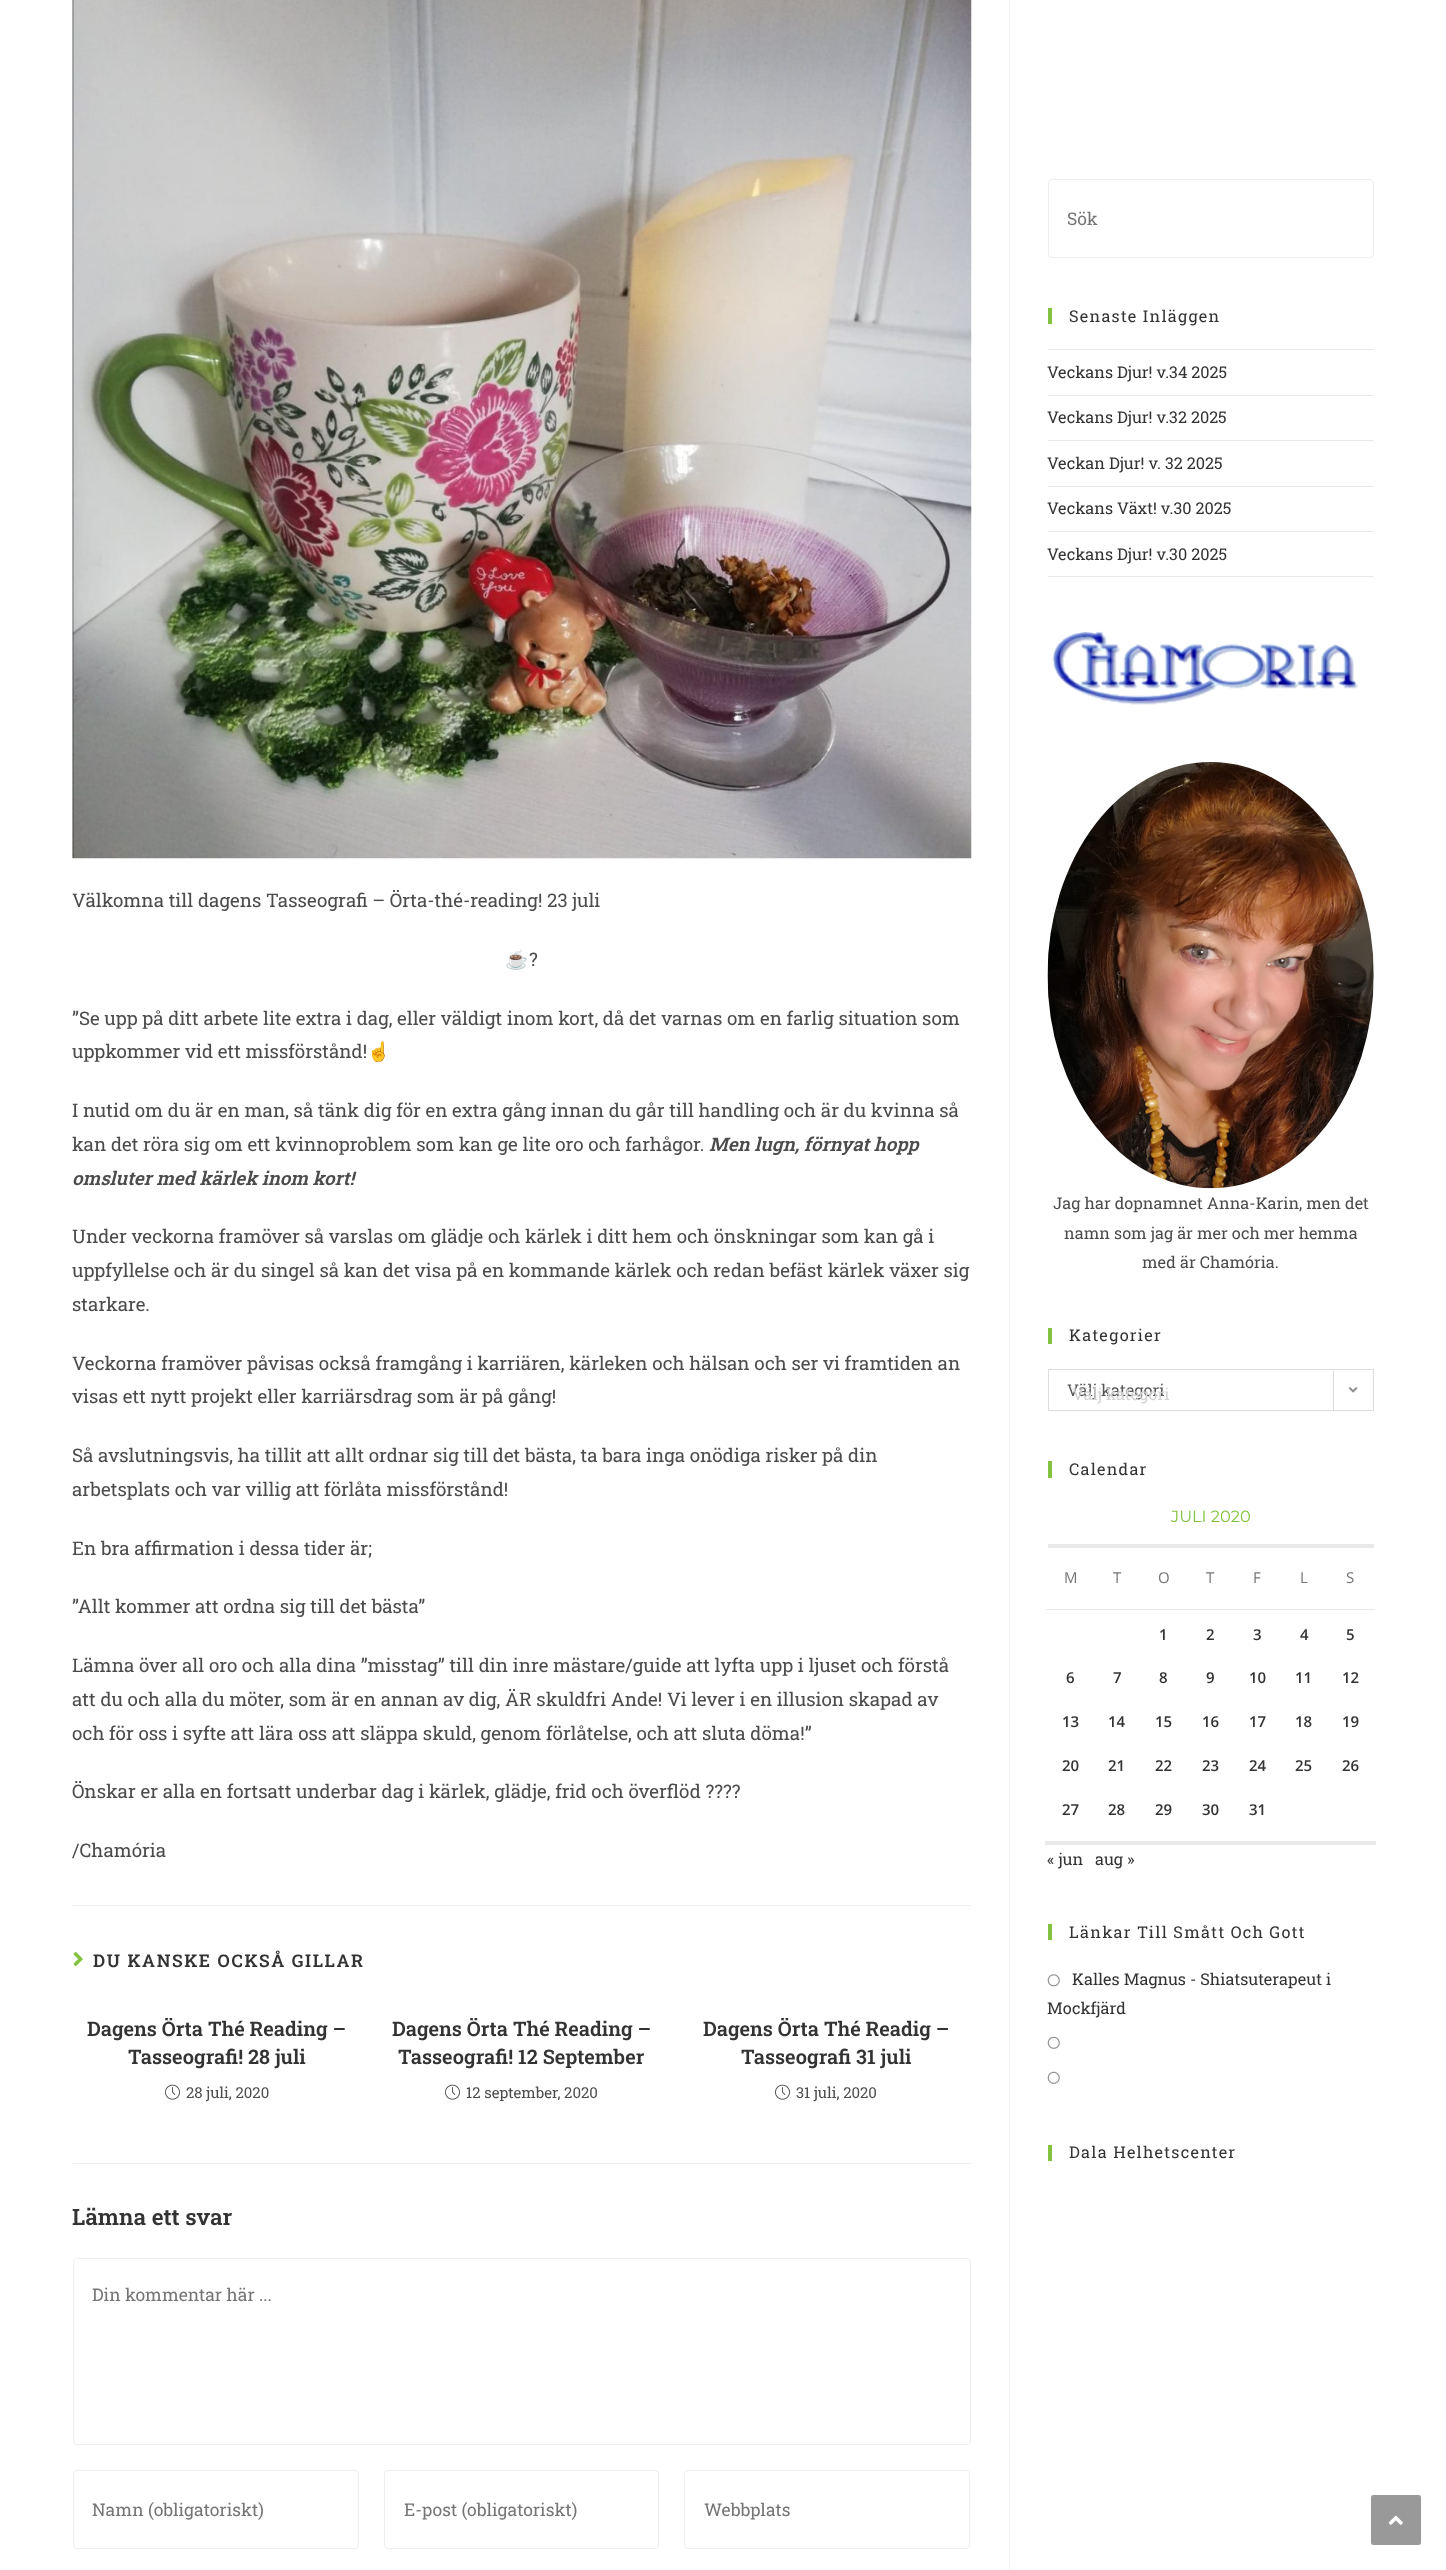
<svg xmlns="http://www.w3.org/2000/svg" width="1446" height="2570" viewBox="0 0 1446 2570">
  <rect width="100%" height="100%" fill="#ffffff"/>
  <rect x="1009" y="0" width="1" height="2570" fill="#f1f1f1"/>
  <image x="72" y="0" width="900" height="859" href="img1.png"/>
  <text x="72" y="907" font-family="Roboto Slab" font-size="18.75" fill="#4c4c4c">Välkomna till dagens Tasseografi – Örta-thé-reading! 23 juli</text>
  <text x="505" y="966" font-family="Noto Color Emoji" font-size="18.75" fill="#4c4c4c">☕</text>
  <text x="529" y="966" font-family="Roboto Slab" font-size="18.75" fill="#4c4c4c">?</text>
  <text x="72" y="1025" font-family="Roboto Slab" font-size="18.75" fill="#4c4c4c">”Se upp på ditt arbete lite extra i dag, eller väldigt inom kort, då det varnas om en farlig situation som</text>
  <text x="72" y="1058" font-family="Roboto Slab" font-size="18.75" fill="#4c4c4c">uppkommer vid ett missförstånd!</text>
  <text x="367" y="1058" font-family="Noto Color Emoji" font-size="18.75" fill="#4c4c4c">☝</text>
  <text x="72" y="1117" font-family="Roboto Slab" font-size="18.75" fill="#4c4c4c">I nutid om du är en man, så tänk dig för en extra gång innan du går till handling och är du kvinna så</text>
  <text x="72" y="1151" font-family="Roboto Slab" font-size="18.75" fill="#4c4c4c">kan det röra sig om ett kvinnoproblem som kan ge lite oro och farhågor.</text>
  <text x="709" y="1151" font-family="Roboto Slab" font-size="18.75" font-weight="600" font-style="italic" fill="#4c4c4c">Men lugn, förnyat hopp</text>
  <text x="72" y="1185" font-family="Roboto Slab" font-size="18.75" font-weight="600" font-style="italic" fill="#4c4c4c">omsluter med kärlek inom kort!</text>
  <text x="72" y="1243" font-family="Roboto Slab" font-size="18.75" fill="#4c4c4c">Under veckorna framöver så varslas om glädje och kärlek i ditt hem och önskningar som kan gå i</text>
  <text x="72" y="1277" font-family="Roboto Slab" font-size="18.75" fill="#4c4c4c">uppfyllelse och är du singel så kan det visa på en kommande kärlek och redan befäst kärlek växer sig</text>
  <text x="72" y="1311" font-family="Roboto Slab" font-size="18.75" fill="#4c4c4c">starkare.</text>
  <text x="72" y="1370" font-family="Roboto Slab" font-size="18.75" fill="#4c4c4c">Veckorna framöver påvisas också framgång i karriären, kärleken och hälsan och ser vi framtiden an</text>
  <text x="72" y="1403" font-family="Roboto Slab" font-size="18.75" fill="#4c4c4c">visas ett nytt projekt eller karriärsdrag som är på gång!</text>
  <text x="72" y="1462" font-family="Roboto Slab" font-size="18.75" fill="#4c4c4c">Så avslutningsvis, ha tillit att allt ordnar sig till det bästa, ta bara inga onödiga risker på din</text>
  <text x="72" y="1496" font-family="Roboto Slab" font-size="18.75" fill="#4c4c4c">arbetsplats och var villig att förlåta missförstånd!</text>
  <text x="72" y="1555" font-family="Roboto Slab" font-size="18.75" fill="#4c4c4c">En bra affirmation i dessa tider är;</text>
  <text x="72" y="1613" font-family="Roboto Slab" font-size="18.75" fill="#4c4c4c">”Allt kommer att ordna sig till det bästa”</text>
  <text x="72" y="1672" font-family="Roboto Slab" font-size="18.75" fill="#4c4c4c">Lämna över all oro och alla dina ”misstag” till din inre mästare/guide att lyfta upp i ljuset och förstå</text>
  <text x="72" y="1706" font-family="Roboto Slab" font-size="18.75" fill="#4c4c4c">att du och alla du möter, som är en annan av dig, ÄR skuldfri Ande! Vi lever i en illusion skapad av</text>
  <text x="72" y="1740" font-family="Roboto Slab" font-size="18.75" fill="#4c4c4c">och för oss i syfte att lära oss att släppa skuld, genom förlåtelse, och att sluta döma!”</text>
  <text x="72" y="1798" font-family="Roboto Slab" font-size="18.75" fill="#4c4c4c">Önskar er alla en fortsatt underbar dag i kärlek, glädje, frid och överflöd ????</text>
  <text x="72" y="1857" font-family="Roboto Slab" font-size="18.75" fill="#4c4c4c">/Chamória</text>
  <rect x="73" y="1905" width="898" height="1" fill="#f1f1f1"/>
  <image x="73" y="1952" width="10" height="15" href="img2.png"/>
  <text x="93" y="1967" font-family="Roboto Slab" font-size="17.5" font-weight="600" letter-spacing="1.6" fill="#333333">DU KANSKE OCKSÅ GILLAR</text>
  <text x="87" y="2036" font-family="Roboto Slab" font-size="20" font-weight="600" fill="#333333">Dagens Örta Thé Reading –</text>
  <text x="128" y="2064" font-family="Roboto Slab" font-size="20" font-weight="600" fill="#333333">Tasseografi! 28 juli</text>
  <image x="165" y="2084" width="15" height="16" href="img3.png"/>
  <text x="186" y="2098" font-family="Roboto Slab" font-size="15" fill="#4c4c4c">28 juli, 2020</text>
  <text x="392" y="2036" font-family="Roboto Slab" font-size="20" font-weight="600" fill="#333333">Dagens Örta Thé Reading –</text>
  <text x="398" y="2064" font-family="Roboto Slab" font-size="20" font-weight="600" fill="#333333">Tasseografi! 12 September</text>
  <image x="445" y="2084" width="15" height="16" href="img3.png"/>
  <text x="466" y="2098" font-family="Roboto Slab" font-size="15" fill="#4c4c4c">12 september, 2020</text>
  <text x="703" y="2036" font-family="Roboto Slab" font-size="20" font-weight="600" fill="#333333">Dagens Örta Thé Readig –</text>
  <text x="741" y="2064" font-family="Roboto Slab" font-size="20" font-weight="600" fill="#333333">Tasseografi 31 juli</text>
  <image x="775" y="2084" width="15" height="16" href="img3.png"/>
  <text x="796" y="2098" font-family="Roboto Slab" font-size="15" fill="#4c4c4c">31 juli, 2020</text>
  <rect x="73" y="2163" width="898" height="1" fill="#f1f1f1"/>
  <text x="72" y="2225" font-family="Roboto Slab" font-size="22.5" font-weight="600" fill="#333333">Lämna ett svar</text>
  <rect x="73.5" y="2258.5" width="897" height="186" rx="3.5" fill="none" stroke="#eeeeee"/>
  <text x="92" y="2301" font-family="Roboto Slab" font-size="17.5" fill="#757575">Din kommentar här ...</text>
  <rect x="73.5" y="2470.5" width="285" height="78" rx="3.5" fill="none" stroke="#eeeeee"/>
  <text x="92" y="2516" font-family="Roboto Slab" font-size="17.5" fill="#757575">Namn (obligatoriskt)</text>
  <rect x="384.5" y="2470.5" width="274" height="78" rx="3.5" fill="none" stroke="#eeeeee"/>
  <text x="404" y="2516" font-family="Roboto Slab" font-size="17.5" fill="#757575">E-post (obligatoriskt)</text>
  <rect x="684.5" y="2470.5" width="285" height="78" rx="3.5" fill="none" stroke="#eeeeee"/>
  <text x="704" y="2516" font-family="Roboto Slab" font-size="17.5" fill="#757575">Webbplats</text>
  <rect x="1048.5" y="179.5" width="325" height="78" rx="3.5" fill="none" stroke="#eeeeee"/>
  <text x="1067" y="225" font-family="Roboto Slab" font-size="17.5" fill="#757575">Sök</text>
  <rect x="1048" y="308" width="4" height="16" fill="#84c340"/>
  <text x="1069" y="322" font-family="Roboto Slab" font-size="16.25" letter-spacing="1.25" fill="#333333">Senaste Inläggen</text>
  <rect x="1048" y="349" width="326" height="1" fill="#e9e9e9"/>
  <rect x="1048" y="395" width="326" height="1" fill="#e9e9e9"/>
  <text x="1047" y="378" font-family="Roboto Slab" font-size="16.25" fill="#333333">Veckans Djur! v.34 2025</text>
  <rect x="1048" y="440" width="326" height="1" fill="#e9e9e9"/>
  <text x="1047" y="423" font-family="Roboto Slab" font-size="16.25" fill="#333333">Veckans Djur! v.32 2025</text>
  <rect x="1048" y="486" width="326" height="1" fill="#e9e9e9"/>
  <text x="1047" y="469" font-family="Roboto Slab" font-size="16.25" fill="#333333">Veckan Djur! v. 32 2025</text>
  <rect x="1048" y="531" width="326" height="1" fill="#e9e9e9"/>
  <text x="1047" y="514" font-family="Roboto Slab" font-size="16.25" fill="#333333">Veckans Växt! v.30 2025</text>
  <rect x="1048" y="576" width="326" height="1" fill="#e9e9e9"/>
  <text x="1047" y="560" font-family="Roboto Slab" font-size="16.25" fill="#333333">Veckans Djur! v.30 2025</text>
  <image x="1052" y="631" width="306" height="74" href="img4.png"/>
  <image x="1047" y="762" width="327" height="427" href="img5.png"/>
  <text x="1053" y="1209" font-family="Roboto Slab" font-size="16.25" fill="#4c4c4c">Jag har dopnamnet Anna-Karin, men det</text>
  <text x="1064" y="1239" font-family="Roboto Slab" font-size="16.25" fill="#4c4c4c">namn som jag är mer och mer hemma</text>
  <text x="1142" y="1268" font-family="Roboto Slab" font-size="16.25" fill="#4c4c4c">med är Chamória.</text>
  <rect x="1048" y="1328" width="4" height="16" fill="#84c340"/>
  <text x="1069" y="1341" font-family="Roboto Slab" font-size="16.25" letter-spacing="1.25" fill="#333333">Kategorier</text>
  <rect x="1048.5" y="1369.5" width="325" height="41" fill="none" stroke="#dddddd"/>
  <text x="1067" y="1396" font-family="Roboto Slab" font-size="16.25" fill="#555555">Välj kategori</text>
  <rect x="1333" y="1370" width="1" height="40" fill="#dddddd"/>
  <image x="1348" y="1387" width="10" height="6" href="img6.png"/>
  <text x="1072" y="1400" font-family="Roboto Slab" font-size="16.25" fill="#d3d3d3">Välj kategori</text>
  <rect x="1048" y="1461" width="4" height="17" fill="#84c340"/>
  <text x="1069" y="1475" font-family="Roboto Slab" font-size="16.25" letter-spacing="1.25" fill="#333333">Calendar</text>
  <rect x="1048" y="1544" width="326" height="4" fill="#e9e9e9"/>
  <text x="1171" y="1522" font-family="Montserrat" font-size="16.25" fill="#84c340">JULI 2020</text>
  <text x="1064" y="1583" font-family="Open Sans" font-size="15" fill="#757575">M</text>
  <text x="1113" y="1583" font-family="Open Sans" font-size="15" fill="#757575">T</text>
  <text x="1158" y="1583" font-family="Open Sans" font-size="15" fill="#757575">O</text>
  <text x="1206" y="1583" font-family="Open Sans" font-size="15" fill="#757575">T</text>
  <text x="1253" y="1583" font-family="Open Sans" font-size="15" fill="#757575">F</text>
  <text x="1300" y="1583" font-family="Open Sans" font-size="15" fill="#757575">L</text>
  <rect x="1046" y="1609" width="329" height="1" fill="#e9e9e9"/>
  <text x="1346" y="1583" font-family="Open Sans" font-size="15" fill="#757575">S</text>
  <rect x="1045" y="1841" width="331" height="4" fill="#e9e9e9"/>
  <text x="1159" y="1640" font-family="Open Sans" font-size="15" font-weight="600" fill="#333333">1</text>
  <text x="1206" y="1640" font-family="Open Sans" font-size="15" font-weight="600" fill="#333333">2</text>
  <text x="1253" y="1640" font-family="Open Sans" font-size="15" font-weight="600" fill="#333333">3</text>
  <text x="1300" y="1640" font-family="Open Sans" font-size="15" font-weight="600" fill="#333333">4</text>
  <text x="1346" y="1640" font-family="Open Sans" font-size="15" font-weight="600" fill="#333333">5</text>
  <text x="1066" y="1683" font-family="Open Sans" font-size="15" font-weight="600" fill="#333333">6</text>
  <text x="1113" y="1683" font-family="Open Sans" font-size="15" font-weight="600" fill="#333333">7</text>
  <text x="1159" y="1683" font-family="Open Sans" font-size="15" font-weight="600" fill="#333333">8</text>
  <text x="1206" y="1683" font-family="Open Sans" font-size="15" font-weight="600" fill="#333333">9</text>
  <text x="1249" y="1683" font-family="Open Sans" font-size="15" font-weight="600" fill="#333333">10</text>
  <text x="1295" y="1683" font-family="Open Sans" font-size="15" font-weight="600" fill="#333333">11</text>
  <text x="1342" y="1683" font-family="Open Sans" font-size="15" font-weight="600" fill="#333333">12</text>
  <text x="1062" y="1727" font-family="Open Sans" font-size="15" font-weight="600" fill="#333333">13</text>
  <text x="1108" y="1727" font-family="Open Sans" font-size="15" font-weight="600" fill="#333333">14</text>
  <text x="1155" y="1727" font-family="Open Sans" font-size="15" font-weight="600" fill="#333333">15</text>
  <text x="1202" y="1727" font-family="Open Sans" font-size="15" font-weight="600" fill="#333333">16</text>
  <text x="1249" y="1727" font-family="Open Sans" font-size="15" font-weight="600" fill="#333333">17</text>
  <text x="1295" y="1727" font-family="Open Sans" font-size="15" font-weight="600" fill="#333333">18</text>
  <text x="1342" y="1727" font-family="Open Sans" font-size="15" font-weight="600" fill="#333333">19</text>
  <text x="1062" y="1771" font-family="Open Sans" font-size="15" font-weight="600" fill="#333333">20</text>
  <text x="1108" y="1771" font-family="Open Sans" font-size="15" font-weight="600" fill="#333333">21</text>
  <text x="1155" y="1771" font-family="Open Sans" font-size="15" font-weight="600" fill="#333333">22</text>
  <text x="1202" y="1771" font-family="Open Sans" font-size="15" font-weight="600" fill="#333333">23</text>
  <text x="1249" y="1771" font-family="Open Sans" font-size="15" font-weight="600" fill="#333333">24</text>
  <text x="1295" y="1771" font-family="Open Sans" font-size="15" font-weight="600" fill="#333333">25</text>
  <text x="1342" y="1771" font-family="Open Sans" font-size="15" font-weight="600" fill="#333333">26</text>
  <text x="1062" y="1815" font-family="Open Sans" font-size="15" font-weight="600" fill="#333333">27</text>
  <text x="1108" y="1815" font-family="Open Sans" font-size="15" font-weight="600" fill="#333333">28</text>
  <text x="1155" y="1815" font-family="Open Sans" font-size="15" font-weight="600" fill="#333333">29</text>
  <text x="1202" y="1815" font-family="Open Sans" font-size="15" font-weight="600" fill="#333333">30</text>
  <text x="1249" y="1815" font-family="Open Sans" font-size="15" font-weight="600" fill="#333333">31</text>
  <text x="1047" y="1865" font-family="Roboto Slab" font-size="16.25" fill="#333333">« jun</text>
  <text x="1095" y="1865" font-family="Roboto Slab" font-size="16.25" fill="#333333">aug »</text>
  <rect x="1048" y="1924" width="4" height="16" fill="#84c340"/>
  <text x="1069" y="1938" font-family="Roboto Slab" font-size="16.25" letter-spacing="1.25" fill="#333333">Länkar Till Smått Och Gott</text>
  <image x="1047" y="1974" width="13" height="13" href="img7.png"/>
  <text x="1072" y="1985" font-family="Roboto Slab" font-size="16.25" fill="#333333">Kalles Magnus - Shiatsuterapeut i</text>
  <text x="1047" y="2014" font-family="Roboto Slab" font-size="16.25" fill="#333333">Mockfjärd</text>
  <image x="1047" y="2036" width="13" height="13" href="img8.png"/>
  <image x="1047" y="2071" width="13" height="13" href="img8.png"/>
  <rect x="1048" y="2145" width="4" height="16" fill="#84c340"/>
  <text x="1069" y="2158" font-family="Roboto Slab" font-size="16.25" letter-spacing="1.25" fill="#333333">Dala Helhetscenter</text>
  <rect x="1371" y="2495" width="50" height="50" rx="2.5" fill="#999999"/>
  <image x="1388" y="2515" width="15" height="10" href="img9.png"/>
</svg>
